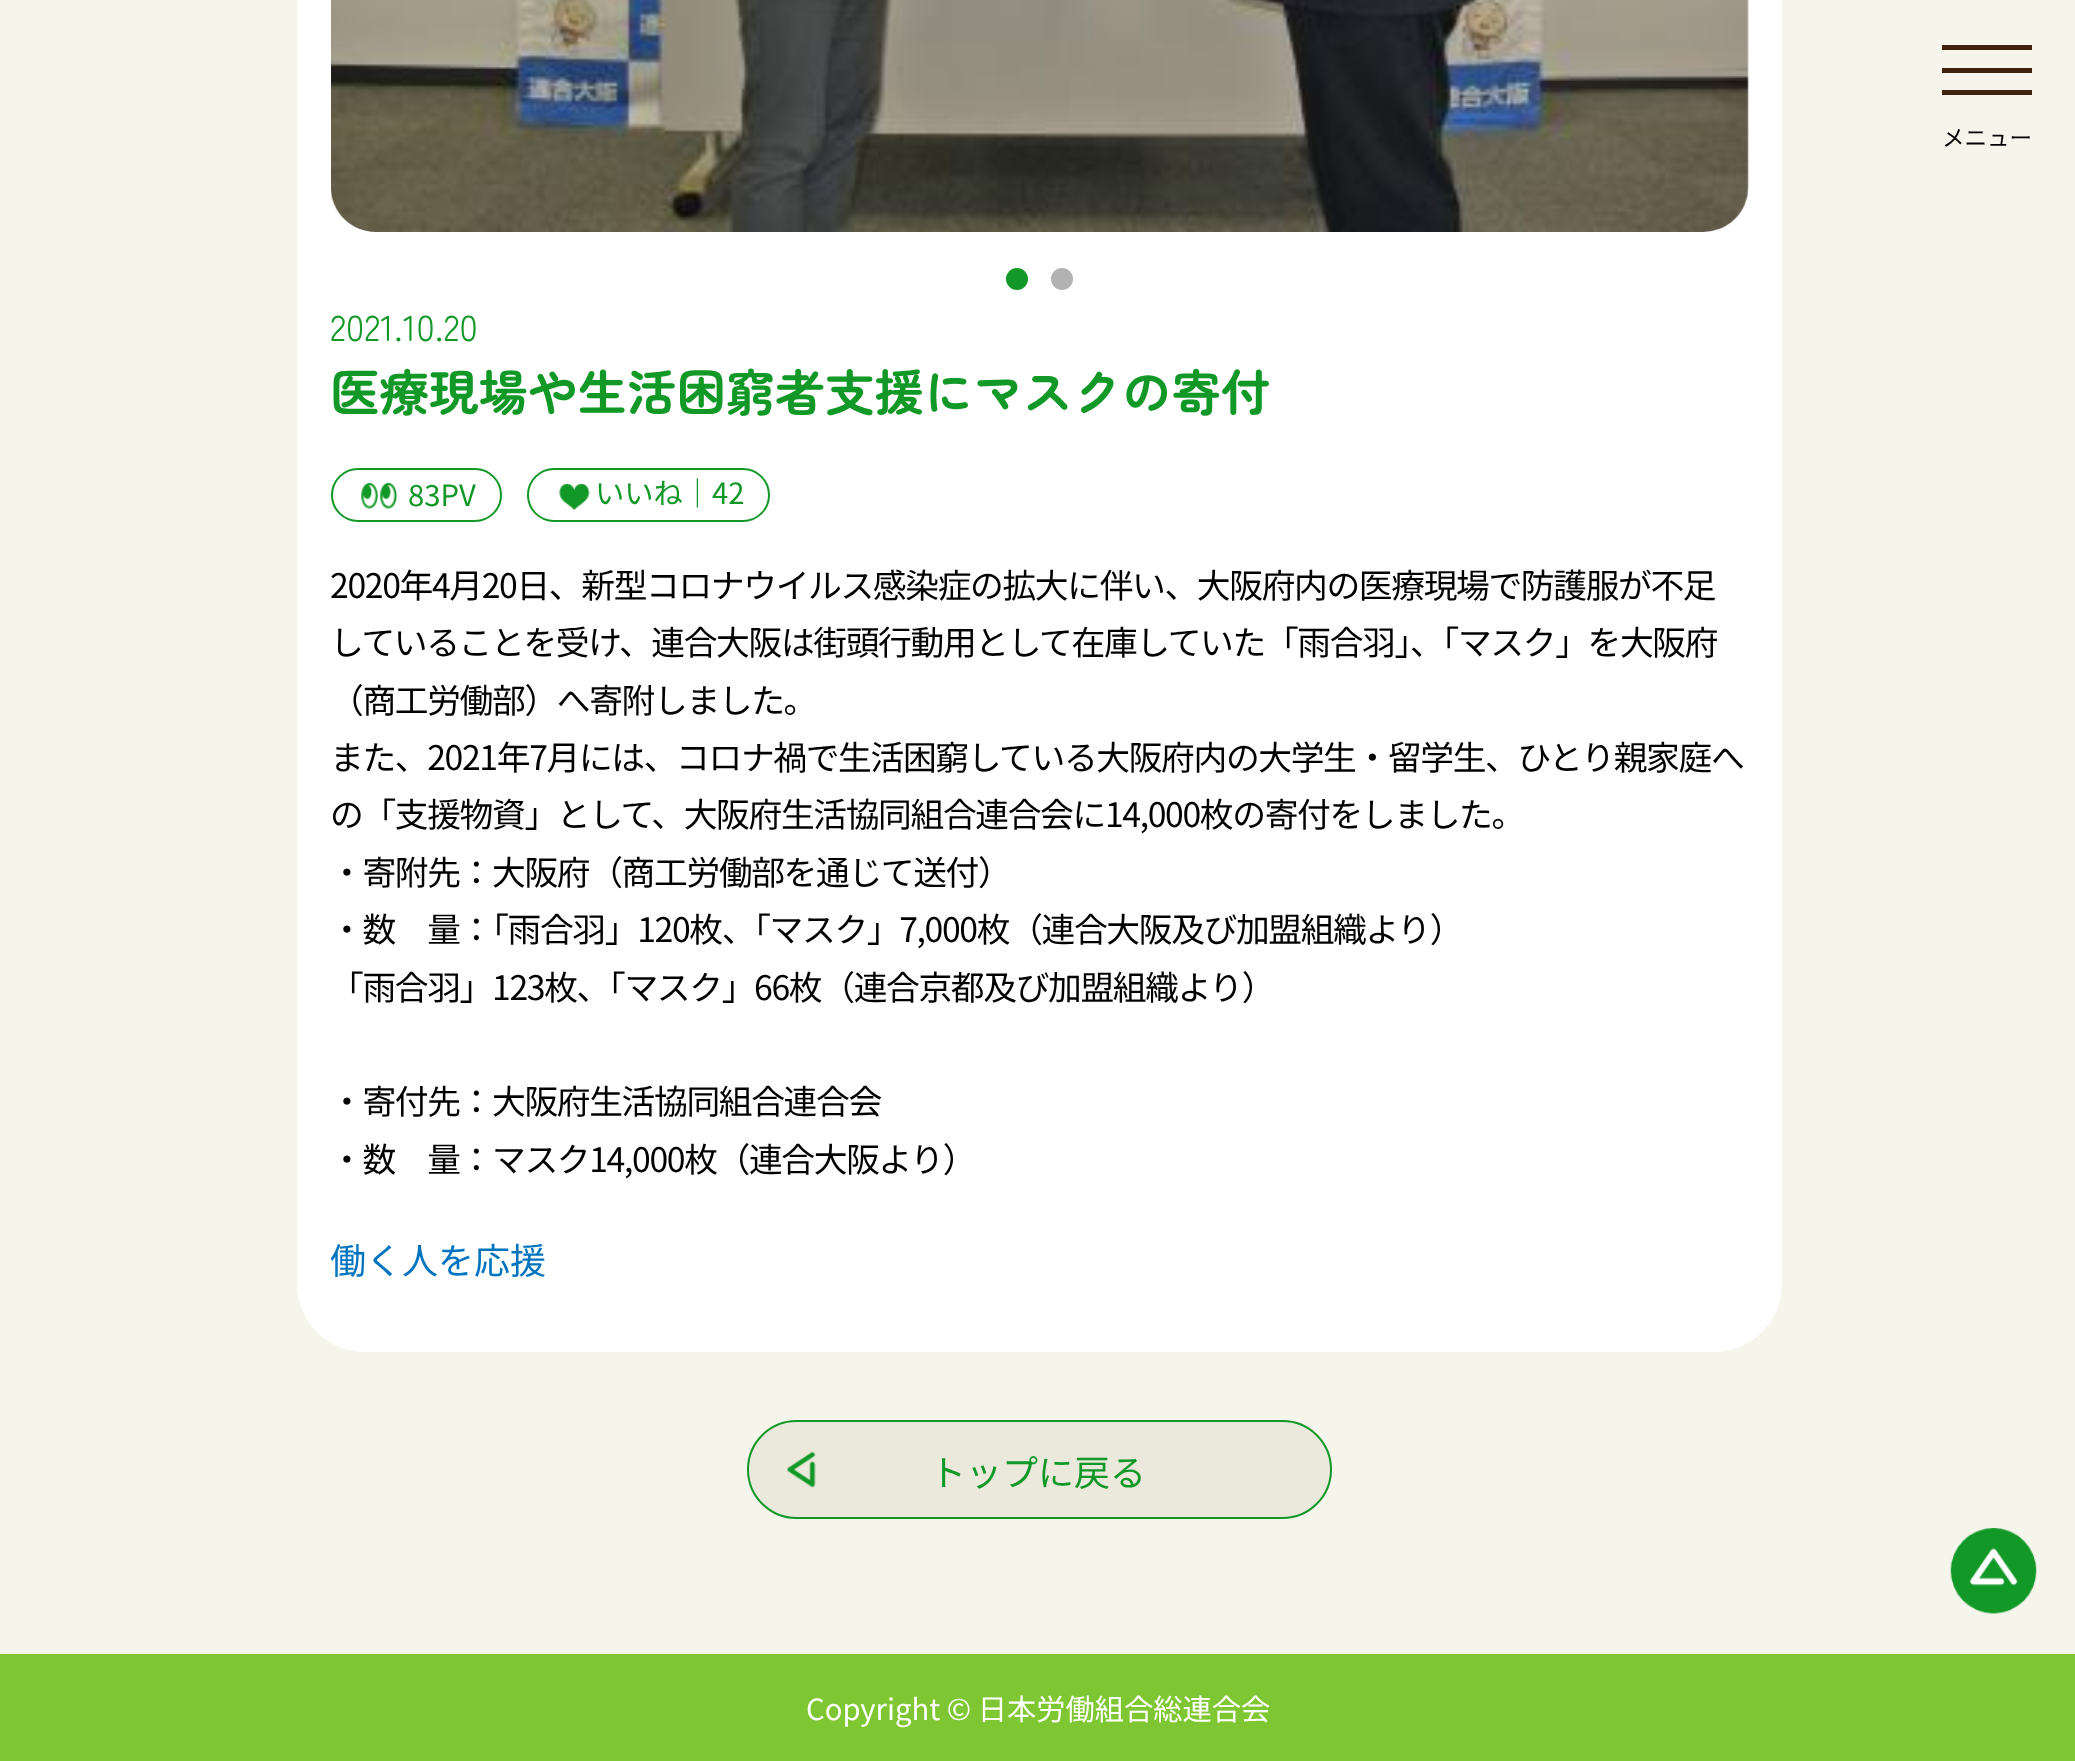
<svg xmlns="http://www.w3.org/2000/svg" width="2075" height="1761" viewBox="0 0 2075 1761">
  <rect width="100%" height="100%" fill="#f5f5ec"/>
  <rect x="1942" y="45" width="90" height="5" fill="#40220f"/>
  <rect x="1942" y="68" width="90" height="5" fill="#40220f"/>
  <rect x="1942" y="90" width="90" height="5" fill="#40220f"/>
  <text x="1942" y="146" font-family="Noto Sans JP" font-size="22.5" fill="#000000">メニュー</text>
  <rect x="297" y="-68" width="1485" height="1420" rx="68" fill="#ffffff"/>
  <image x="331" y="0" width="1418" height="232" href="img1.png"/>
  <circle cx="1017" cy="279" r="11" fill="#119827"/>
  <circle cx="1062" cy="279" r="11" fill="#b2b2b2"/>
  <text x="330" y="341" font-family="Zen Maru Gothic" font-size="36" fill="#119827">2021.10.20</text>
  <text x="330" y="411" font-family="Zen Maru Gothic" font-size="49.5" font-weight="bold" fill="#119827">医療現場や生活困窮者支援にマスクの寄付</text>
  <rect x="332" y="469" width="169" height="52" rx="26" fill="none" stroke="#119827" stroke-width="2"/>
  <image x="361" y="482" width="37" height="27" href="img2.png"/>
  <text x="408" y="506" font-family="Noto Sans JP" font-size="29.25" fill="#119827">83PV</text>
  <rect x="528" y="469" width="241" height="52" rx="26" fill="none" stroke="#119827" stroke-width="2"/>
  <image x="559" y="484" width="31" height="26" href="img3.png"/>
  <text x="595" y="504" font-family="Noto Sans JP" font-size="29.25" fill="#119827">いいね｜42</text>
  <text x="330" y="598" font-family="Noto Sans JP" font-size="33.75" letter-spacing="-1.35" fill="#000000">2020年4月20日、新型コロナウイルス感染症の拡大に伴い、大阪府内の医療現場で防護服が不足</text>
  <text x="330" y="655" font-family="Noto Sans JP" font-size="33.75" letter-spacing="-1.35" fill="#000000">していることを受け、連合大阪は街頭行動用として在庫していた「雨合羽」、「マスク」を大阪府</text>
  <text x="330" y="713" font-family="Noto Sans JP" font-size="33.75" letter-spacing="-1.35" fill="#000000">（商工労働部）へ寄附しました。</text>
  <text x="330" y="770" font-family="Noto Sans JP" font-size="33.75" letter-spacing="-1.35" fill="#000000">また、2021年7月には、コロナ禍で生活困窮している大阪府内の大学生・留学生、ひとり親家庭へ</text>
  <text x="330" y="827" font-family="Noto Sans JP" font-size="33.75" letter-spacing="-1.35" fill="#000000">の「支援物資」として、大阪府生活協同組合連合会に14,000枚の寄付をしました。</text>
  <text x="330" y="885" font-family="Noto Sans JP" font-size="33.75" letter-spacing="-1.35" fill="#000000">・寄附先：大阪府（商工労働部を通じて送付）</text>
  <text x="330" y="942" font-family="Noto Sans JP" font-size="33.75" letter-spacing="-1.35" fill="#000000">・数　量：「雨合羽」120枚、「マスク」7,000枚（連合大阪及び加盟組織より）</text>
  <text x="330" y="1000" font-family="Noto Sans JP" font-size="33.75" letter-spacing="-1.35" fill="#000000">「雨合羽」123枚、「マスク」66枚（連合京都及び加盟組織より）</text>
  <text x="330" y="1114" font-family="Noto Sans JP" font-size="33.75" letter-spacing="-1.35" fill="#000000">・寄付先：大阪府生活協同組合連合会</text>
  <text x="330" y="1172" font-family="Noto Sans JP" font-size="33.75" letter-spacing="-1.35" fill="#000000">・数　量：マスク14,000枚（連合大阪より）</text>
  <text x="330" y="1274" font-family="Noto Sans JP" font-size="36" fill="#0074be">働く人を応援</text>
  <rect x="747" y="1420" width="585" height="99" rx="49.5" fill="#ebe8dc"/>
  <image x="787" y="1451" width="29" height="37" href="img4.png"/>
  <rect x="748" y="1421" width="583" height="97" rx="48.5" fill="none" stroke="#119827" stroke-width="2"/>
  <text x="930" y="1486" font-family="Noto Sans JP" font-size="36" fill="#119827">トップに戻る</text>
  <rect x="0" y="1654" width="2075" height="107" fill="#7fc732"/>
  <image x="1950" y="1528" width="87" height="86" href="img5.png"/>
  <text x="806" y="1720" font-family="Noto Sans JP" font-size="29.25" fill="#ffffff">Copyright © 日本労働組合総連合会</text>
</svg>
